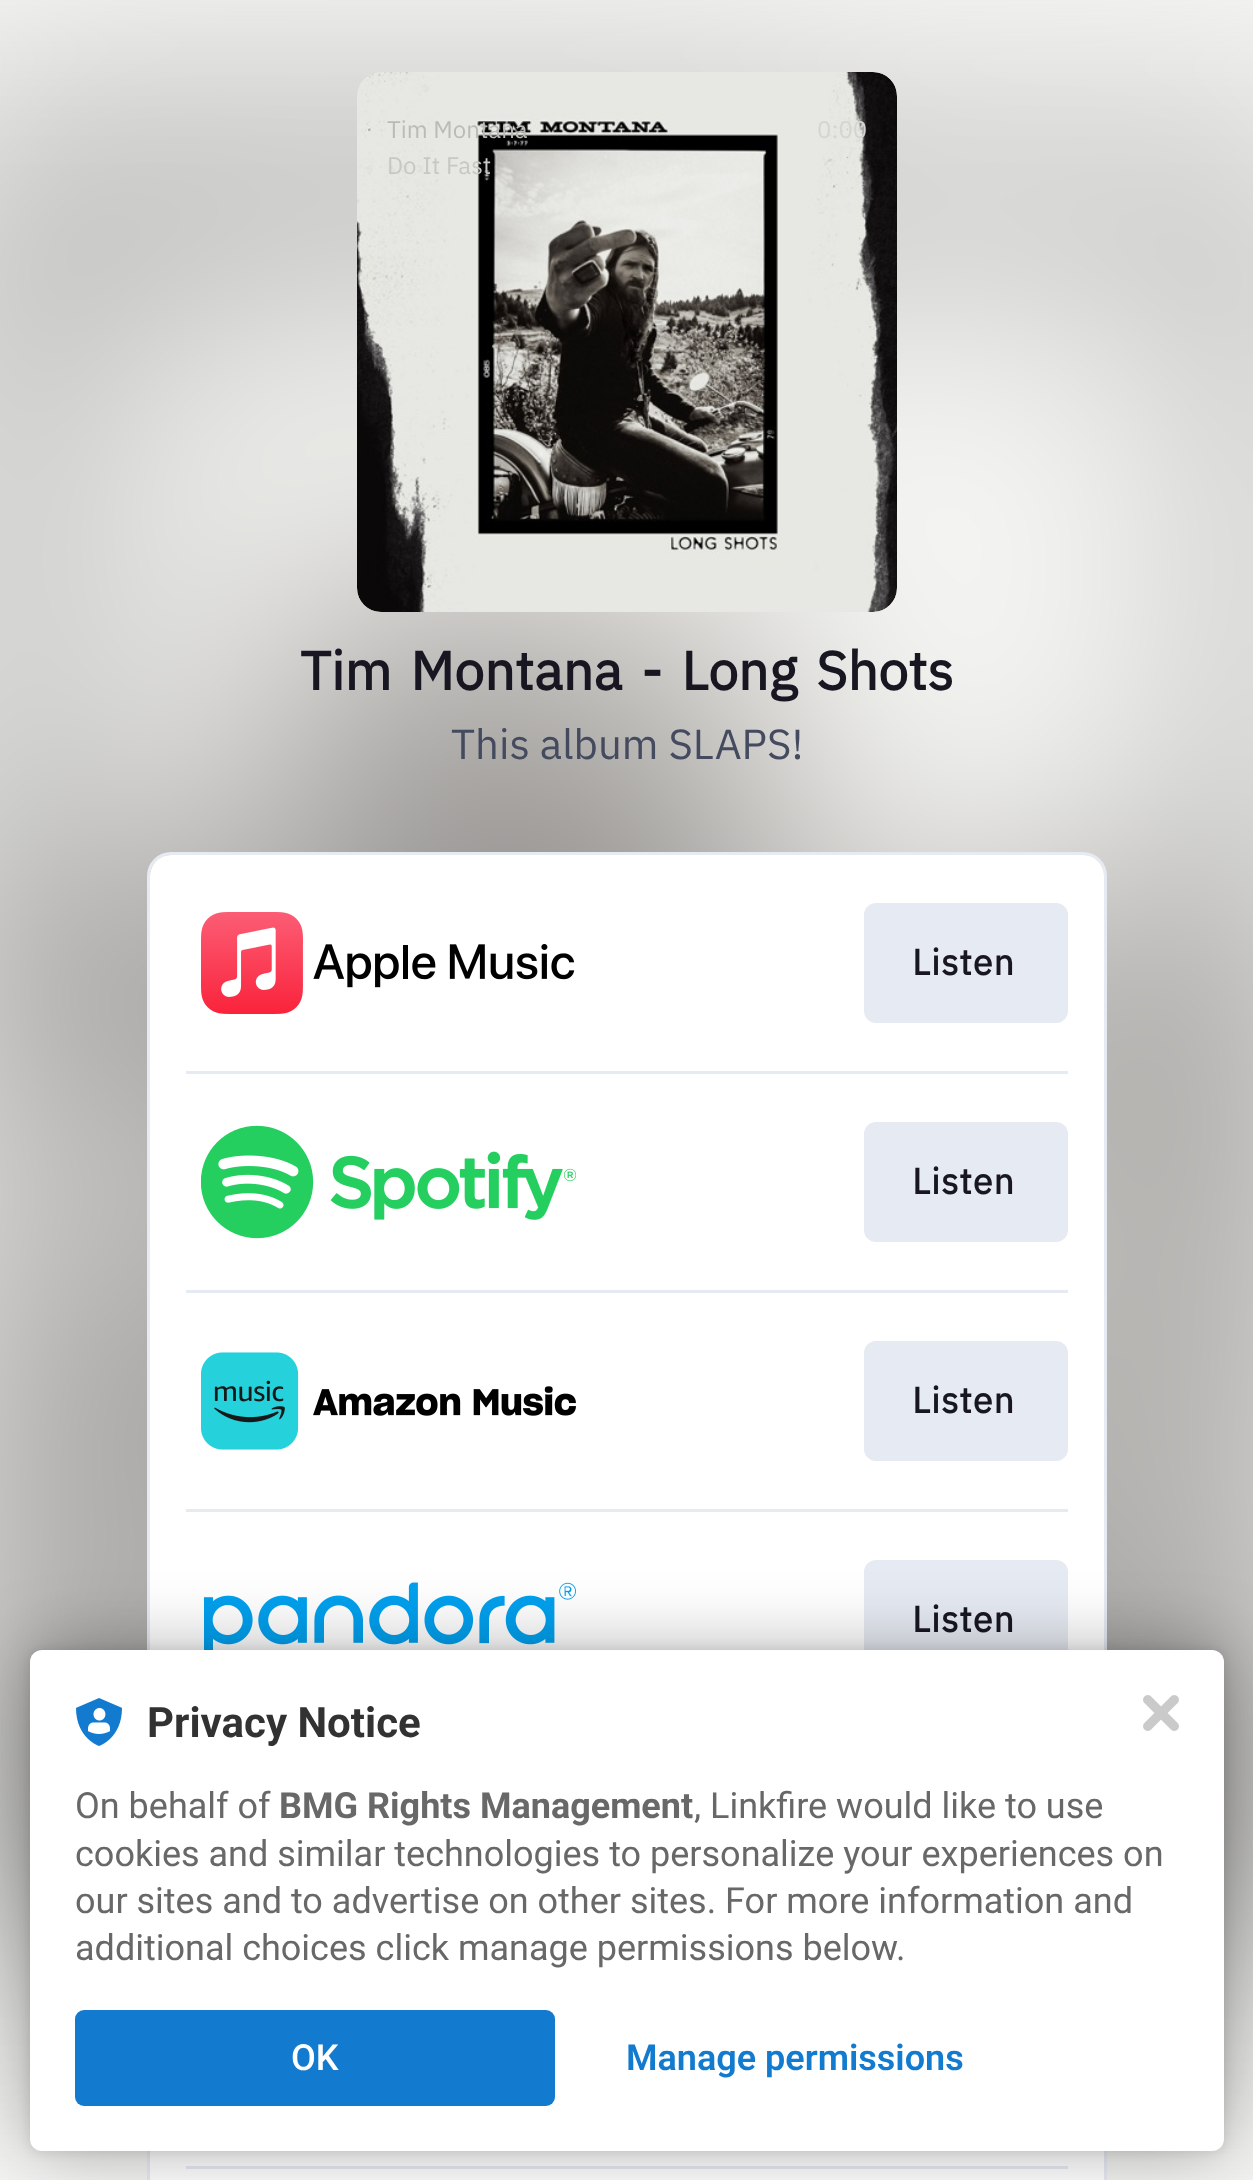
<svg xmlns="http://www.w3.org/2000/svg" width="1253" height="2180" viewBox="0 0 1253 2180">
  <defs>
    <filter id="blur1" x="-50%" y="-200%" width="200%" height="500%"><feGaussianBlur stdDeviation="6"/></filter>
    <filter id="blur2" x="-50%" y="-200%" width="200%" height="500%"><feGaussianBlur stdDeviation="36"/></filter>
  </defs>
  <rect width="100%" height="100%" fill="#ffffff"/>
  <image x="0" y="0" width="1253" height="2180" href="img1.png"/>
  <image x="357" y="72" width="540" height="540" href="img2.png"/>
  <text x="387" y="138" font-family="IBM Plex Sans" font-size="24" fill="#babbb7">Tim Montana</text>
  <text x="387" y="174" font-family="IBM Plex Sans" font-size="24" fill="#c7c8c4">Do It Fast</text>
  <text x="817" y="138" font-family="IBM Plex Sans" font-size="24" fill="#d4d5d0">0:00</text>
  <text x="300" y="690" word-spacing="6" font-family="IBM Plex Sans" font-size="54" font-weight="bold" fill="#181721">Tim Montana - Long Shots</text>
  <text x="451" y="759" font-family="IBM Plex Sans" font-size="42" fill="#454b5f">This album SLAPS!</text>
  <rect x="148.5" y="853.5" width="957" height="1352" rx="22.5" fill="none" stroke="#e6eaf2" stroke-width="3"/>
  <rect x="150" y="855" width="954" height="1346" rx="21" fill="#ffffff"/>
  <image x="201" y="912" width="374" height="102" href="img3.png"/>
  <rect x="864" y="903" width="204" height="120" rx="12" fill="#e6eaf2"/>
  <text x="912" y="975" font-family="IBM Plex Sans" font-size="36" font-weight="bold" letter-spacing="1" fill="#181721">Listen</text>
  <rect x="186" y="1071" width="882" height="3" fill="#e6eaf2"/>
  <image x="201" y="1125" width="375" height="114" href="img4.png"/>
  <rect x="864" y="1122" width="204" height="120" rx="12" fill="#e6eaf2"/>
  <text x="912" y="1194" font-family="IBM Plex Sans" font-size="36" font-weight="bold" letter-spacing="1" fill="#181721">Listen</text>
  <rect x="186" y="1290" width="882" height="3" fill="#e6eaf2"/>
  <image x="201" y="1352" width="375" height="98" href="img5.png"/>
  <rect x="864" y="1341" width="204" height="120" rx="12" fill="#e6eaf2"/>
  <text x="912" y="1413" font-family="IBM Plex Sans" font-size="36" font-weight="bold" letter-spacing="1" fill="#181721">Listen</text>
  <rect x="186" y="1509" width="882" height="3" fill="#e6eaf2"/>
  <image x="204" y="1582" width="372" height="68" href="img6.png"/>
  <rect x="864" y="1560" width="204" height="120" rx="12" fill="#e6eaf2"/>
  <text x="912" y="1632" font-family="IBM Plex Sans" font-size="36" font-weight="bold" letter-spacing="1" fill="#181721">Listen</text>
  <rect x="186" y="2166" width="882" height="3" fill="#e6eaf2"/>
  <rect x="30" y="1650" width="1194" height="501" rx="12" fill="#000000" fill-opacity="0.12" filter="url(#blur1)"/>
  <rect x="30" y="1650" width="1194" height="501" rx="12" fill="#000000" fill-opacity="0.3" filter="url(#blur2)"/>
  <rect x="30" y="1650" width="1194" height="501" rx="12" fill="#ffffff"/>
  <image x="1143" y="1695" width="36" height="36" href="img7.png"/>
  <image x="76" y="1698" width="46" height="48" href="img8.png"/>
  <text x="147" y="1737" font-family="Roboto" font-size="42" font-weight="bold" fill="#323232">Privacy Notice</text>
  <text x="75" y="1818" font-family="Roboto" font-size="36" fill="#686868">On behalf of</text>
  <text x="279" y="1818" font-family="Roboto" font-size="36" font-weight="bold" fill="#686868">BMG Rights Management</text>
  <text x="694" y="1818" font-family="Roboto" font-size="36" fill="#686868">, Linkfire would like to use</text>
  <text x="75" y="1866" font-family="Roboto" font-size="36" fill="#686868">cookies and similar technologies to personalize your experiences on</text>
  <text x="75" y="1913" font-family="Roboto" font-size="36" fill="#686868">our sites and to advertise on other sites. For more information and</text>
  <text x="75" y="1960" font-family="Roboto" font-size="36" fill="#686868">additional choices click manage permissions below.</text>
  <rect x="75" y="2010" width="480" height="96" rx="9" fill="#137bcf"/>
  <text x="291" y="2070" font-family="Roboto" font-size="36" font-weight="500" fill="#ffffff">OK</text>
  <text x="626" y="2070" font-family="Roboto" font-size="36" font-weight="600" fill="#137bcf">Manage permissions</text>
</svg>
